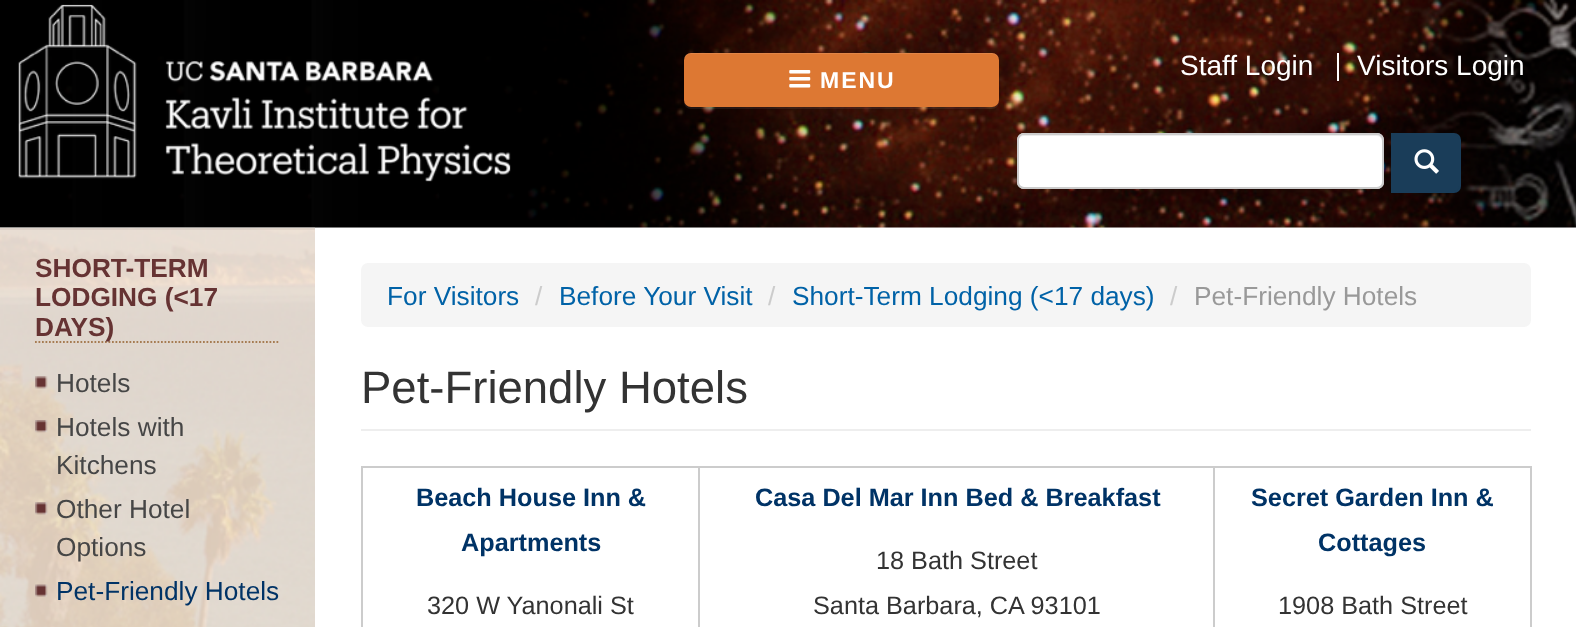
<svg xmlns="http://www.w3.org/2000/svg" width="1576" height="627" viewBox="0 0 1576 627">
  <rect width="100%" height="100%" fill="#ffffff"/>
  <rect x="0" y="227" width="1576" height="1" fill="#f8f8f8"/>
  <image x="0" y="0" width="1576" height="228" href="img2.png"/>
  <path d="M684 59V102C684 106 687 109 691 109H992C996 109 999 106 999 102C998 105 995 107 992 107H691C687 107 684 104 684 100Z" fill="#ffffff" fill-opacity="0.07"/>
  <rect x="684" y="53" width="315" height="54" rx="7" fill="#dd7833"/>
  <path d="M691 54H992C996 54 999 57 999 61V60C999 56 996 53 992 53H691C687 53 684 56 684 60V61C684 57 687 54 691 54Z" fill="#ffffff" fill-opacity="0.1"/>
  <image x="789" y="70" width="22" height="18" href="img1.png"/>
  <text x="820" y="88" font-family="Liberation Sans" font-size="23" font-weight="bold" letter-spacing="2" fill="#ffffff">MENU</text>
  <image x="18" y="4" width="493" height="178" href="img3.png"/>
  <text x="1180" y="75" font-family="Liberation Sans" font-size="28" fill="#ffffff">Staff Login</text>
  <rect x="1337" y="53" width="2" height="28" fill="#ffffff"/>
  <text x="1357" y="75" font-family="Liberation Sans" font-size="28" fill="#ffffff">Visitors Login</text>
  <rect x="1017" y="133" width="367" height="56" rx="7" fill="#ffffff"/>
  <path d="M1024 136H1377C1380 136 1382 139 1382 142V185C1383 184 1383 183 1383 182V140C1383 137 1381 135 1378 135H1024C1022 135 1020 137 1019 139C1020 137 1022 136 1024 136Z" fill="#ececec"/>
  <rect x="1018" y="134" width="365" height="54" rx="6" fill="none" stroke="#cccccc" stroke-width="2"/>
  <path d="M1392 134H1454C1457.5 134 1460 136.5 1460 140V186C1460 189.5 1457.5 192 1454 192H1392Z" fill="#1a3d59" stroke="#1a3d59" stroke-width="2"/>
  <image x="1414" y="149" width="25" height="25" href="img4.png"/>
  <image x="0" y="227" width="315" height="400" href="img5.png"/>
  <rect x="0" y="228" width="315" height="2" fill="#000000" fill-opacity="0.05"/>
  <path d="M35 342H280" fill="none" stroke="#a67c52" stroke-width="1.8" stroke-dasharray="1.75 1.75"/>
  <text x="35" y="277" font-family="Liberation Sans" font-size="26.25" font-weight="bold" fill="#663333">SHORT-TERM</text>
  <text x="35" y="306" font-family="Liberation Sans" font-size="26.25" font-weight="bold" fill="#663333">LODGING (&lt;17</text>
  <text x="35" y="336" font-family="Liberation Sans" font-size="26.25" font-weight="bold" fill="#663333">DAYS)</text>
  <image x="35" y="376" width="13" height="13" href="img6.png"/>
  <text x="56" y="392" font-family="Liberation Sans" font-size="26.25" fill="#464646">Hotels</text>
  <image x="35" y="420" width="13" height="13" href="img7.png"/>
  <text x="56" y="436" font-family="Liberation Sans" font-size="26.25" fill="#464646">Hotels with</text>
  <text x="56" y="474" font-family="Liberation Sans" font-size="26.25" fill="#464646">Kitchens</text>
  <image x="35" y="502" width="13" height="13" href="img8.png"/>
  <text x="56" y="518" font-family="Liberation Sans" font-size="26.25" fill="#464646">Other Hotel</text>
  <text x="56" y="556" font-family="Liberation Sans" font-size="26.25" fill="#464646">Options</text>
  <image x="35" y="584" width="13" height="13" href="img9.png"/>
  <text x="56" y="600" font-family="Liberation Sans" font-size="26.25" fill="#003366">Pet-Friendly Hotels</text>
  <rect x="361" y="263" width="1170" height="64" rx="7" fill="#f5f5f5"/>
  <text x="387" y="305" font-family="Liberation Sans" font-size="26.25" fill="#0062a7">For Visitors</text>
  <text x="535" y="305" font-family="Liberation Sans" font-size="26.25" fill="#cccccc">/</text>
  <text x="559" y="305" font-family="Liberation Sans" font-size="26.25" fill="#0062a7">Before Your Visit</text>
  <text x="768" y="305" font-family="Liberation Sans" font-size="26.25" fill="#cccccc">/</text>
  <text x="792" y="305" font-family="Liberation Sans" font-size="26.25" fill="#0062a7">Short-Term Lodging (&lt;17 days)</text>
  <text x="1170" y="305" font-family="Liberation Sans" font-size="26.25" fill="#cccccc">/</text>
  <text x="1194" y="305" font-family="Liberation Sans" font-size="26.25" fill="#999999">Pet-Friendly Hotels</text>
  <rect x="361" y="429" width="1170" height="2" fill="#eeeeee"/>
  <text x="361" y="403" font-family="Liberation Sans" font-size="45.5" fill="#333333">Pet-Friendly Hotels</text>
  <rect x="361" y="466" width="1170" height="2" fill="#cccccc"/>
  <rect x="361" y="466" width="2" height="161" fill="#cccccc"/>
  <text x="416" y="506" font-family="Liberation Sans" font-size="25.25" font-weight="bold" fill="#003366">Beach House Inn &amp;</text>
  <text x="461" y="551" font-family="Liberation Sans" font-size="25.25" font-weight="bold" fill="#003366">Apartments</text>
  <text x="427" y="614" font-family="Liberation Sans" font-size="25.25" fill="#333333">320 W Yanonali St</text>
  <rect x="698" y="466" width="2" height="161" fill="#cccccc"/>
  <text x="755" y="506" font-family="Liberation Sans" font-size="25.25" font-weight="bold" fill="#003366">Casa Del Mar Inn Bed &amp; Breakfast</text>
  <text x="876" y="569" font-family="Liberation Sans" font-size="25.25" fill="#333333">18 Bath Street</text>
  <text x="813" y="614" font-family="Liberation Sans" font-size="25.25" fill="#333333">Santa Barbara, CA 93101</text>
  <rect x="1530" y="466" width="2" height="161" fill="#cccccc"/>
  <rect x="1213" y="466" width="2" height="161" fill="#cccccc"/>
  <text x="1251" y="506" font-family="Liberation Sans" font-size="25.25" font-weight="bold" fill="#003366">Secret Garden Inn &amp;</text>
  <text x="1318" y="551" font-family="Liberation Sans" font-size="25.25" font-weight="bold" fill="#003366">Cottages</text>
  <text x="1278" y="614" font-family="Liberation Sans" font-size="25.25" fill="#333333">1908 Bath Street</text>
</svg>
